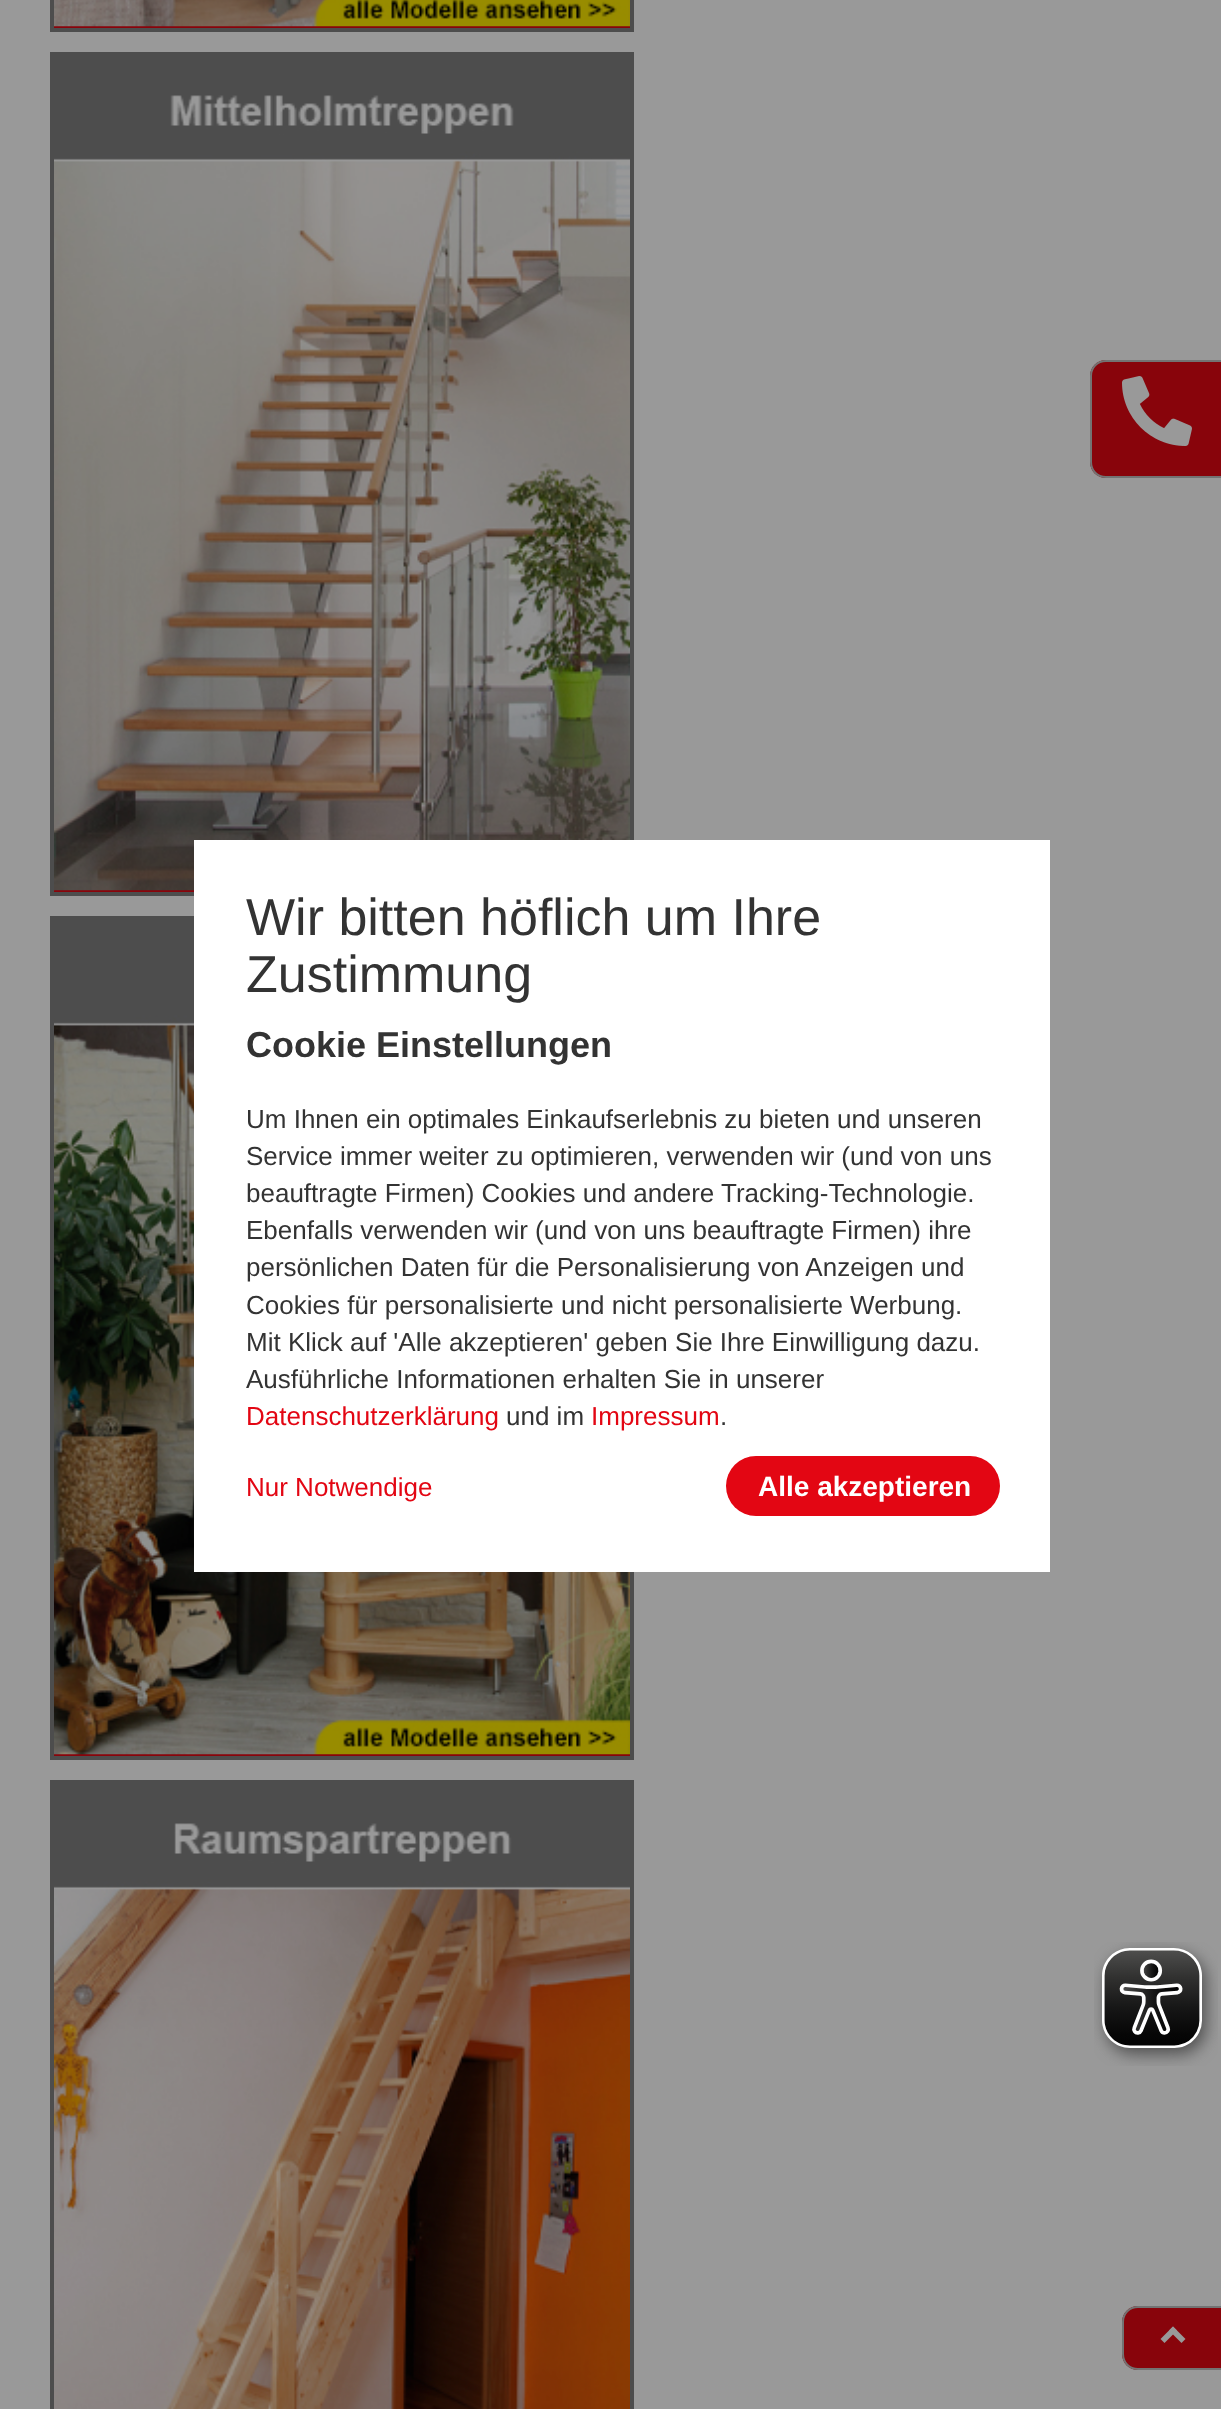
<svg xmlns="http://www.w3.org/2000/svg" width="1221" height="2409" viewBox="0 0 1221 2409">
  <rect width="100%" height="100%" fill="#999999"/>
  <image x="54" y="26" width="576" height="2" href="img1.png"/>
  <rect x="52" y="-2" width="580" height="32" fill="none" stroke="#4d4d4d" stroke-width="4"/>
  <image x="54" y="0" width="576" height="26" href="img2.png"/>
  <image x="54" y="890" width="140" height="2" href="img3.png"/>
  <rect x="52" y="54" width="580" height="840" fill="none" stroke="#4d4d4d" stroke-width="4"/>
  <image x="54" y="56" width="576" height="834" href="img4.png"/>
  <image x="54" y="1754" width="576" height="2" href="img5.png"/>
  <rect x="52" y="918" width="580" height="840" fill="none" stroke="#4d4d4d" stroke-width="4"/>
  <image x="54" y="920" width="576" height="834" href="img6.png"/>
  <rect x="52" y="1782" width="580" height="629" fill="none" stroke="#4d4d4d" stroke-width="4"/>
  <image x="54" y="1784" width="576" height="625" href="img7.png"/>
  <path d="M1106 360H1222V478H1106C1097 478 1090 471 1090 462V376C1090 367 1097 360 1106 360Z" fill="#88040b"/>
  <path d="M1106 360H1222V478H1106C1097 478 1090 471 1090 462V376C1090 367 1097 360 1106 360ZM1106 362H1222V476H1106C1098 476 1092 470 1092 462V376C1092 368 1098 362 1106 362Z" fill="#737373" fill-rule="evenodd"/>
  <image x="1122" y="376" width="70" height="70" href="img8.png"/>
  <path d="M1138 2306H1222V2370H1138C1129 2370 1122 2363 1122 2354V2322C1122 2313 1129 2306 1138 2306Z" fill="#88040b"/>
  <path d="M1138 2306H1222V2370H1138C1129 2370 1122 2363 1122 2354V2322C1122 2313 1129 2306 1138 2306ZM1138 2308H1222V2368H1138C1130 2368 1124 2362 1124 2354V2322C1124 2314 1130 2308 1138 2308Z" fill="#737373" fill-rule="evenodd"/>
  <path d="M1164.5 2343L1160.5 2339L1173 2326.5L1177 2330.5Z" fill="#999999"/>
  <path d="M1181.5 2343L1169 2330.5L1173 2326.5L1185.5 2339Z" fill="#999999"/>
  <rect x="194" y="840" width="856" height="732" fill="#ffffff"/>
  <text x="246" y="935" font-family="Liberation Sans" font-size="52" fill="#333333">Wir bitten höflich um Ihre</text>
  <text x="246" y="992" font-family="Liberation Sans" font-size="52" fill="#333333">Zustimmung</text>
  <text x="246" y="1057" font-family="Liberation Sans" font-size="36" font-weight="bold" fill="#333333">Cookie Einstellungen</text>
  <text x="246" y="1128" font-family="Liberation Sans" font-size="26" fill="#333333">Um Ihnen ein optimales Einkaufserlebnis zu bieten und unseren</text>
  <text x="246" y="1165" font-family="Liberation Sans" font-size="26" fill="#333333">Service immer weiter zu optimieren, verwenden wir (und von uns</text>
  <text x="246" y="1202" font-family="Liberation Sans" font-size="26" fill="#333333">beauftragte Firmen) Cookies und andere Tracking-Technologie.</text>
  <text x="246" y="1239" font-family="Liberation Sans" font-size="26" fill="#333333">Ebenfalls verwenden wir (und von uns beauftragte Firmen) ihre</text>
  <text x="246" y="1276" font-family="Liberation Sans" font-size="26" fill="#333333">persönlichen Daten für die Personalisierung von Anzeigen und</text>
  <text x="246" y="1314" font-family="Liberation Sans" font-size="26" fill="#333333">Cookies für personalisierte und nicht personalisierte Werbung.</text>
  <text x="246" y="1351" font-family="Liberation Sans" font-size="26" fill="#333333">Mit Klick auf 'Alle akzeptieren' geben Sie Ihre Einwilligung dazu.</text>
  <text x="246" y="1388" font-family="Liberation Sans" font-size="26" fill="#333333">Ausführliche Informationen erhalten Sie in unserer</text>
  <text x="246" y="1425" font-family="Liberation Sans" font-size="26" fill="#e30613">Datenschutzerklärung</text>
  <text x="506" y="1425" font-family="Liberation Sans" font-size="26" fill="#333333">und im</text>
  <text x="591" y="1425" font-family="Liberation Sans" font-size="26" fill="#e30613">Impressum</text>
  <text x="720" y="1425" font-family="Liberation Sans" font-size="26" fill="#333333">.</text>
  <text x="246" y="1496" font-family="Liberation Sans" font-size="26" fill="#e30613">Nur Notwendige</text>
  <rect x="726" y="1456" width="274" height="60" rx="30" fill="#e30613"/>
  <text x="758" y="1496" font-family="Liberation Sans" font-size="28" font-weight="bold" fill="#ffffff">Alle akzeptieren</text>
  <image x="1094" y="1942" width="124" height="124" href="img9.png"/>
</svg>
